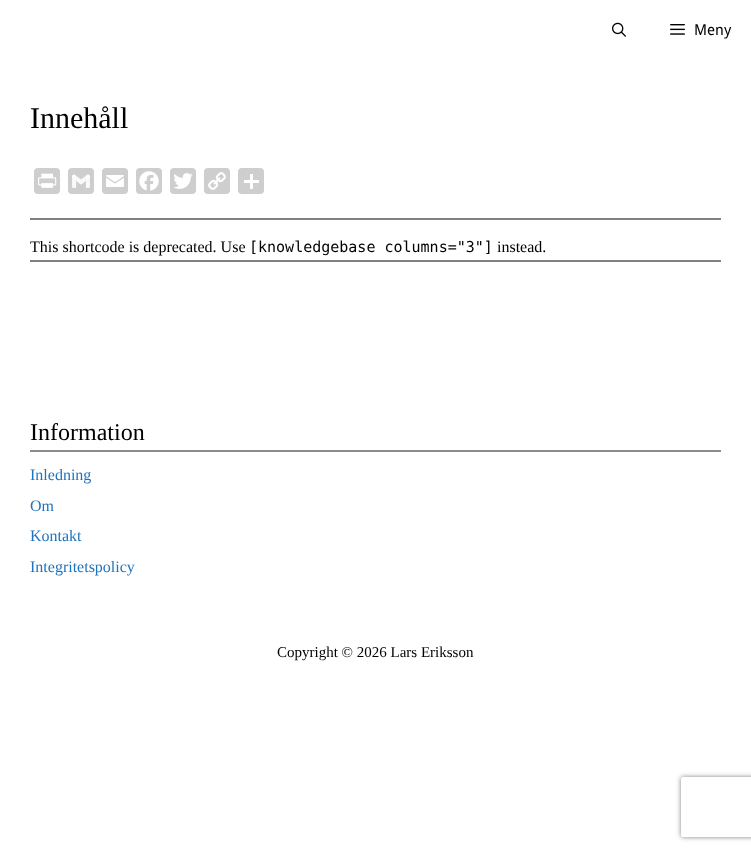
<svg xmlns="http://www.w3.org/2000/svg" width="751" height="851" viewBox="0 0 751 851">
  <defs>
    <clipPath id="clip1"><path d="M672 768H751V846H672ZM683 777H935C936 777 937 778 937 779V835C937 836 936 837 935 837H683C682 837 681 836 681 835V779C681 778 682 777 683 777Z" clip-rule="evenodd"/></clipPath>
    <filter id="blur1" x="-50%" y="-200%" width="200%" height="500%"><feGaussianBlur stdDeviation="2.5"/></filter>
  </defs>
  <rect width="100%" height="100%" fill="#ffffff"/>
  <image x="612" y="22" width="14" height="15" href="img1.png"/>
  <image x="670" y="24" width="15" height="11" href="img2.png"/>
  <text x="694" y="35" font-family="Droid Sans" font-size="15" fill="#000000">Meny</text>
  <text x="30" y="128" font-family="Liberation Serif" font-size="30" fill="#000000">Innehåll</text>
  <rect x="34" y="168" width="26" height="26" rx="4" fill="#cecece"/>
  <image x="38" y="173" width="19" height="15" href="img3.png"/>
  <rect x="68" y="168" width="26" height="26" rx="4" fill="#cecece"/>
  <image x="72" y="174" width="18" height="14" href="img4.png"/>
  <rect x="102" y="168" width="26" height="26" rx="4" fill="#cecece"/>
  <image x="106" y="175" width="18" height="12" href="img5.png"/>
  <rect x="136" y="168" width="26" height="26" rx="4" fill="#cecece"/>
  <image x="139" y="171" width="20" height="20" href="img6.png"/>
  <rect x="170" y="168" width="26" height="26" rx="4" fill="#cecece"/>
  <image x="173" y="173" width="20" height="16" href="img7.png"/>
  <rect x="204" y="168" width="26" height="26" rx="4" fill="#cecece"/>
  <image x="208" y="172" width="18" height="18" href="img8.png"/>
  <rect x="238" y="168" width="26" height="26" rx="4" fill="#cecece"/>
  <rect x="250" y="174" width="3" height="15" fill="#ffffff"/>
  <rect x="244" y="180" width="15" height="3" fill="#ffffff"/>
  <rect x="30" y="218" width="691" height="2" fill="#808080"/>
  <text x="30" y="252" font-family="Liberation Serif" font-size="16" fill="#000000">This shortcode is deprecated. Use</text>
  <text x="249" y="252" font-family="DejaVu Sans Mono" font-size="15" fill="#000000">[knowledgebase columns="3"]</text>
  <text x="497" y="252" font-family="Liberation Serif" font-size="16" fill="#000000">instead.</text>
  <rect x="30" y="260" width="691" height="2" fill="#808080"/>
  <rect x="30" y="450" width="691" height="2" fill="#8c8c8c"/>
  <text x="30" y="440" font-family="Liberation Serif" font-size="24" fill="#000000">Information</text>
  <text x="30" y="480" font-family="Liberation Serif" font-size="16" fill="#1e73be">Inledning</text>
  <text x="30" y="511" font-family="Liberation Serif" font-size="16" fill="#1e73be">Om</text>
  <text x="30" y="541" font-family="Liberation Serif" font-size="16" fill="#1e73be">Kontakt</text>
  <text x="30" y="572" font-family="Liberation Serif" font-size="16" fill="#1e73be">Integritetspolicy</text>
  <text x="277" y="657" font-family="Liberation Serif" font-size="15" fill="#000000">Copyright © 2026 Lars Eriksson</text>
  <g clip-path="url(#clip1)">
    <rect x="681" y="777" width="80" height="60" rx="2" fill="#808080" filter="url(#blur1)"/>
  </g>
</svg>
